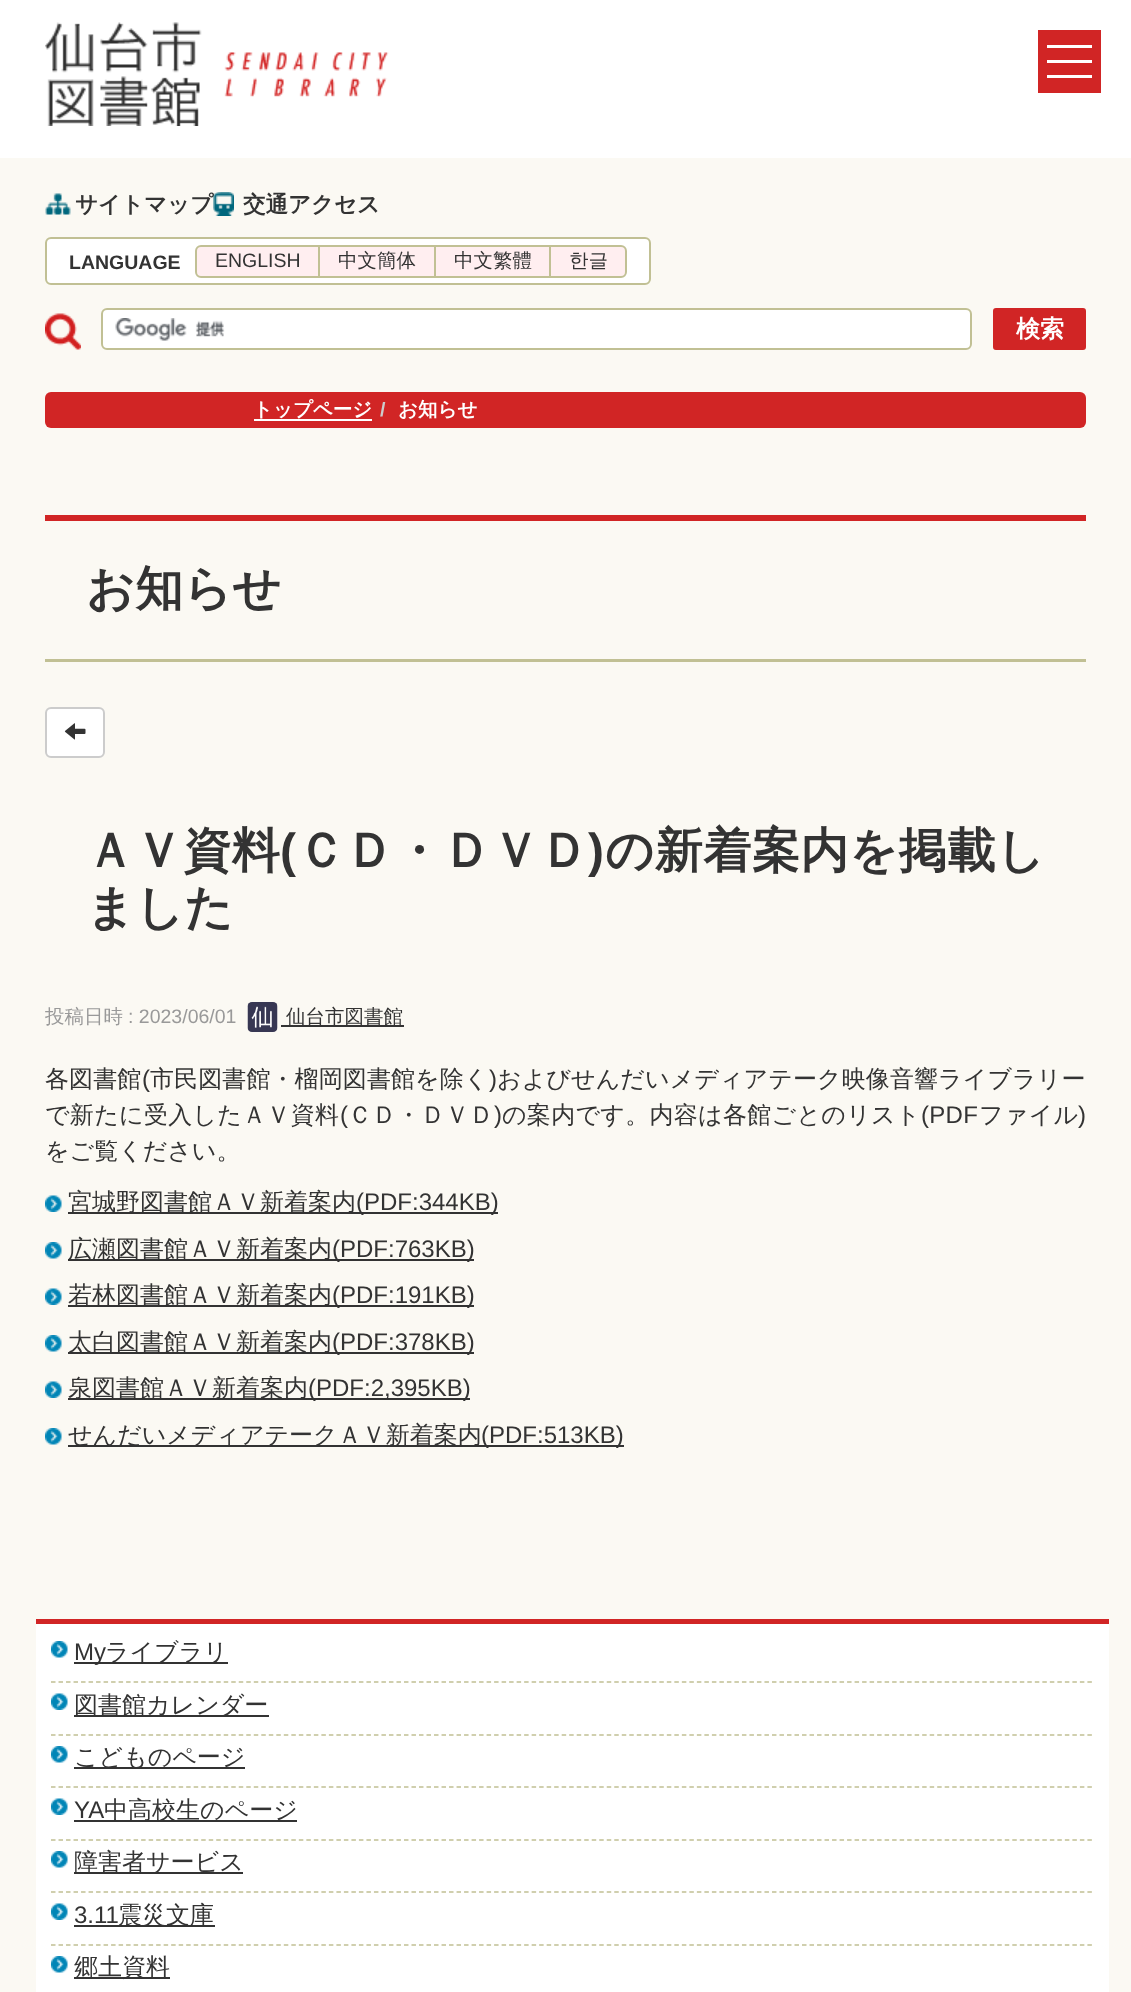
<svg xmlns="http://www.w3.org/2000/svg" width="1131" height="1992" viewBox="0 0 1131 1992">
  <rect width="100%" height="100%" fill="#fbf9f3"/>
  <rect x="0" y="0" width="1131" height="158" fill="#ffffff"/>
  <image x="45" y="22" width="344" height="104" href="img1.png"/>
  <rect x="1038" y="30" width="63" height="63" fill="#d12525"/>
  <rect x="1047" y="45" width="45" height="3" fill="#ffffff"/>
  <rect x="1047" y="60" width="45" height="3" fill="#ffffff"/>
  <rect x="1047" y="75" width="45" height="3" fill="#ffffff"/>
  <image x="45" y="193" width="26" height="22" href="img2.png"/>
  <text x="75" y="212" font-family="WenQuanYi Zen Hei" font-size="22.5" font-weight="bold" fill="#333333">サイトマップ</text>
  <image x="213" y="192" width="21" height="24" href="img3.png"/>
  <text x="243" y="212" font-family="WenQuanYi Zen Hei" font-size="22.5" font-weight="bold" fill="#333333">交通アクセス</text>
  <rect x="46" y="238" width="604" height="46" rx="5" fill="#ffffff" stroke="#c1c094" stroke-width="2"/>
  <text x="69" y="269" font-family="Liberation Sans" font-size="19.5" font-weight="bold" fill="#333333">LANGUAGE</text>
  <rect x="196" y="246" width="430" height="31" rx="5" fill="#ffeef0" stroke="#c1c094" stroke-width="2"/>
  <text x="215" y="267" font-family="Liberation Sans" font-size="19.5" fill="#333333">ENGLISH</text>
  <rect x="318" y="246" width="2" height="30" fill="#c1c094"/>
  <text x="338" y="267" font-family="WenQuanYi Zen Hei" font-size="19.5" font-weight="500" fill="#333333">中文簡体</text>
  <rect x="434" y="246" width="2" height="30" fill="#c1c094"/>
  <text x="454" y="267" font-family="WenQuanYi Zen Hei" font-size="19.5" font-weight="500" fill="#333333">中文繁體</text>
  <rect x="549" y="246" width="2" height="30" fill="#c1c094"/>
  <text x="569" y="267" font-family="WenQuanYi Zen Hei" font-size="19.5" font-weight="500" fill="#333333">한글</text>
  <image x="45" y="313" width="36" height="37" href="img4.png"/>
  <rect x="102" y="309" width="869" height="40" rx="5" fill="#ffffff" stroke="#c1c094" stroke-width="2"/>
  <image x="115" y="318" width="110" height="23" href="img5.png"/>
  <rect x="994" y="309" width="91" height="40" rx="2" fill="#d12525" stroke="#d12525" stroke-width="2"/>
  <text x="1016" y="337" font-family="WenQuanYi Zen Hei" font-size="24" font-weight="bold" fill="#ffffff">検索</text>
  <rect x="45" y="392" width="1041" height="36" rx="6" fill="#d12525"/>
  <text x="253" y="416" font-family="WenQuanYi Zen Hei" font-size="19.5" font-weight="bold" fill="#ffffff">トップページ</text>
  <rect x="254" y="419" width="118" height="2" fill="#ffffff"/>
  <text x="380" y="416" font-family="Liberation Sans" font-size="19.5" font-weight="bold" fill="#cccccc">/</text>
  <text x="398" y="416" font-family="WenQuanYi Zen Hei" font-size="19.5" font-weight="bold" fill="#ffffff">お知らせ</text>
  <rect x="45" y="515" width="1041" height="6" fill="#d12525"/>
  <rect x="45" y="659" width="1041" height="3" fill="#c1c094"/>
  <text x="86" y="605" font-family="WenQuanYi Zen Hei" font-size="48" font-weight="bold" fill="#333333">お知らせ</text>
  <rect x="46" y="708" width="58" height="49" rx="5" fill="#ffffff" stroke="#cccccc" stroke-width="2"/>
  <image x="64" y="723" width="22" height="17" href="img6.png"/>
  <text x="86" y="867" font-family="WenQuanYi Zen Hei" font-size="48" font-weight="bold" letter-spacing="0.6" fill="#333333">ＡＶ資料</text>
  <text x="280" y="867" font-family="Liberation Sans" font-size="48" font-weight="bold" letter-spacing="0.6" fill="#333333">(</text>
  <text x="297" y="867" font-family="WenQuanYi Zen Hei" font-size="48" font-weight="bold" letter-spacing="0.6" fill="#333333">ＣＤ・ＤＶＤ</text>
  <text x="588" y="867" font-family="Liberation Sans" font-size="48" font-weight="bold" letter-spacing="0.6" fill="#333333">)</text>
  <text x="605" y="867" font-family="WenQuanYi Zen Hei" font-size="48" font-weight="bold" letter-spacing="0.6" fill="#333333">の新着案内を掲載し</text>
  <text x="86" y="924" font-family="WenQuanYi Zen Hei" font-size="48" font-weight="bold" fill="#333333">ました</text>
  <text x="45" y="1023" font-family="WenQuanYi Zen Hei" font-size="19.5" font-weight="500" fill="#999999">投稿日時</text>
  <text x="128" y="1023" font-family="Liberation Sans" font-size="19.5" fill="#999999">: 2023/06/01</text>
  <image x="247" y="1002" width="31" height="30" href="img7.png"/>
  <rect x="281" y="1025" width="123" height="2" fill="#333333"/>
  <text x="286" y="1023" font-family="WenQuanYi Zen Hei" font-size="19.5" font-weight="500" fill="#333333">仙台市図書館</text>
  <text x="45" y="1087" font-family="WenQuanYi Zen Hei" font-size="24" font-weight="500" letter-spacing="0.1" fill="#333333">各図書館</text>
  <text x="142" y="1087" font-family="Liberation Sans" font-size="24" letter-spacing="0.1" fill="#333333">(</text>
  <text x="150" y="1087" font-family="WenQuanYi Zen Hei" font-size="24" font-weight="500" letter-spacing="0.1" fill="#333333">市民図書館・榴岡図書館を除く</text>
  <text x="489" y="1087" font-family="Liberation Sans" font-size="24" letter-spacing="0.1" fill="#333333">)</text>
  <text x="497" y="1087" font-family="WenQuanYi Zen Hei" font-size="24" font-weight="500" letter-spacing="0.1" fill="#333333">およびせんだいメディアテーク映像音響ライブラリー</text>
  <text x="45" y="1123" font-family="WenQuanYi Zen Hei" font-size="24" font-weight="500" letter-spacing="0.3" fill="#333333">で新たに受入したＡＶ資料</text>
  <text x="340" y="1123" font-family="Liberation Sans" font-size="24" letter-spacing="0.3" fill="#333333">(</text>
  <text x="348" y="1123" font-family="WenQuanYi Zen Hei" font-size="24" font-weight="500" letter-spacing="0.3" fill="#333333">ＣＤ・ＤＶＤ</text>
  <text x="494" y="1123" font-family="Liberation Sans" font-size="24" letter-spacing="0.3" fill="#333333">)</text>
  <text x="502" y="1123" font-family="WenQuanYi Zen Hei" font-size="24" font-weight="500" letter-spacing="0.3" fill="#333333">の案内です。内容は各館ごとのリスト</text>
  <text x="921" y="1123" font-family="Liberation Sans" font-size="24" letter-spacing="0.3" fill="#333333">(PDF</text>
  <text x="979" y="1123" font-family="WenQuanYi Zen Hei" font-size="24" font-weight="500" letter-spacing="0.3" fill="#333333">ファイル</text>
  <text x="1078" y="1123" font-family="Liberation Sans" font-size="24" letter-spacing="0.3" fill="#333333">)</text>
  <text x="45" y="1159" font-family="WenQuanYi Zen Hei" font-size="24" font-weight="500" fill="#333333">をご覧ください。</text>
  <image x="45" y="1195" width="17" height="17" href="img8.png"/>
  <rect x="68" y="1212" width="430" height="2" fill="#333333"/>
  <text x="68" y="1210" font-family="WenQuanYi Zen Hei" font-size="24" font-weight="500" fill="#333333">宮城野図書館ＡＶ新着案内</text>
  <text x="356" y="1210" font-family="Liberation Sans" font-size="24" fill="#333333">(PDF:344KB)</text>
  <image x="45" y="1242" width="17" height="17" href="img9.png"/>
  <rect x="68" y="1259" width="406" height="2" fill="#333333"/>
  <text x="68" y="1257" font-family="WenQuanYi Zen Hei" font-size="24" font-weight="500" fill="#333333">広瀬図書館ＡＶ新着案内</text>
  <text x="332" y="1257" font-family="Liberation Sans" font-size="24" fill="#333333">(PDF:763KB)</text>
  <image x="45" y="1288" width="17" height="17" href="img8.png"/>
  <rect x="68" y="1305" width="406" height="2" fill="#333333"/>
  <text x="68" y="1303" font-family="WenQuanYi Zen Hei" font-size="24" font-weight="500" fill="#333333">若林図書館ＡＶ新着案内</text>
  <text x="332" y="1303" font-family="Liberation Sans" font-size="24" fill="#333333">(PDF:191KB)</text>
  <image x="45" y="1335" width="17" height="17" href="img9.png"/>
  <rect x="68" y="1352" width="406" height="2" fill="#333333"/>
  <text x="68" y="1350" font-family="WenQuanYi Zen Hei" font-size="24" font-weight="500" fill="#333333">太白図書館ＡＶ新着案内</text>
  <text x="332" y="1350" font-family="Liberation Sans" font-size="24" fill="#333333">(PDF:378KB)</text>
  <image x="45" y="1381" width="17" height="17" href="img8.png"/>
  <rect x="68" y="1398" width="402" height="2" fill="#333333"/>
  <text x="68" y="1396" font-family="WenQuanYi Zen Hei" font-size="24" font-weight="500" fill="#333333">泉図書館ＡＶ新着案内</text>
  <text x="308" y="1396" font-family="Liberation Sans" font-size="24" fill="#333333">(PDF:2,395KB)</text>
  <image x="45" y="1428" width="17" height="17" href="img9.png"/>
  <rect x="68" y="1445" width="556" height="2" fill="#333333"/>
  <text x="68" y="1443" font-family="WenQuanYi Zen Hei" font-size="24" font-weight="500" fill="#333333">せんだいメディアテークＡＶ新着案内</text>
  <text x="481" y="1443" font-family="Liberation Sans" font-size="24" fill="#333333">(PDF:513KB)</text>
  <rect x="36" y="1624" width="1073" height="368" fill="#ffffff"/>
  <rect x="36" y="1619" width="1073" height="5" fill="#d12525"/>
  <image x="51" y="1641" width="17" height="17" href="img10.png"/>
  <rect x="74" y="1662" width="154" height="2" fill="#333333"/>
  <text x="74" y="1660" font-family="Liberation Sans" font-size="24" fill="#333333">My</text>
  <text x="105" y="1660" font-family="WenQuanYi Zen Hei" font-size="24" font-weight="500" fill="#333333">ライブラリ</text>
  <image x="51" y="1693" width="17" height="17" href="img11.png"/>
  <path d="M51 1682H1093.5" fill="none" stroke="#c1c094" stroke-width="1.5" stroke-dasharray="4.5 3.01"/>
  <rect x="74" y="1715" width="195" height="2" fill="#333333"/>
  <text x="74" y="1713" font-family="WenQuanYi Zen Hei" font-size="24" font-weight="500" fill="#333333">図書館カレンダー</text>
  <image x="51" y="1746" width="17" height="17" href="img10.png"/>
  <path d="M51 1735H1093.5" fill="none" stroke="#c1c094" stroke-width="1.5" stroke-dasharray="4.5 3.01"/>
  <rect x="74" y="1767" width="171" height="2" fill="#333333"/>
  <text x="74" y="1765" font-family="WenQuanYi Zen Hei" font-size="24" font-weight="500" fill="#333333">こどものページ</text>
  <image x="51" y="1798" width="17" height="17" href="img11.png"/>
  <path d="M51 1787H1093.5" fill="none" stroke="#c1c094" stroke-width="1.5" stroke-dasharray="4.5 3.01"/>
  <text x="74" y="1818" font-family="Liberation Sans" font-size="24" fill="#333333">YA</text>
  <rect x="74" y="1820" width="223" height="2" fill="#333333"/>
  <text x="104" y="1818" font-family="WenQuanYi Zen Hei" font-size="24" font-weight="500" fill="#333333">中高校生のページ</text>
  <image x="51" y="1851" width="17" height="17" href="img10.png"/>
  <path d="M51 1840H1093.5" fill="none" stroke="#c1c094" stroke-width="1.5" stroke-dasharray="4.5 3.01"/>
  <rect x="74" y="1872" width="169" height="2" fill="#333333"/>
  <text x="74" y="1870" font-family="WenQuanYi Zen Hei" font-size="24" font-weight="500" fill="#333333">障害者サービス</text>
  <image x="51" y="1903" width="17" height="17" href="img11.png"/>
  <path d="M51 1892H1093.5" fill="none" stroke="#c1c094" stroke-width="1.5" stroke-dasharray="4.5 3.01"/>
  <text x="74" y="1923" font-family="Liberation Sans" font-size="24" fill="#333333">3.11</text>
  <rect x="74" y="1925" width="141" height="2" fill="#333333"/>
  <text x="118" y="1923" font-family="WenQuanYi Zen Hei" font-size="24" font-weight="500" fill="#333333">震災文庫</text>
  <image x="51" y="1956" width="17" height="17" href="img10.png"/>
  <path d="M51 1945H1093.5" fill="none" stroke="#c1c094" stroke-width="1.5" stroke-dasharray="4.5 3.01"/>
  <rect x="74" y="1977" width="96" height="2" fill="#333333"/>
  <text x="74" y="1975" font-family="WenQuanYi Zen Hei" font-size="24" font-weight="500" fill="#333333">郷土資料</text>
</svg>
